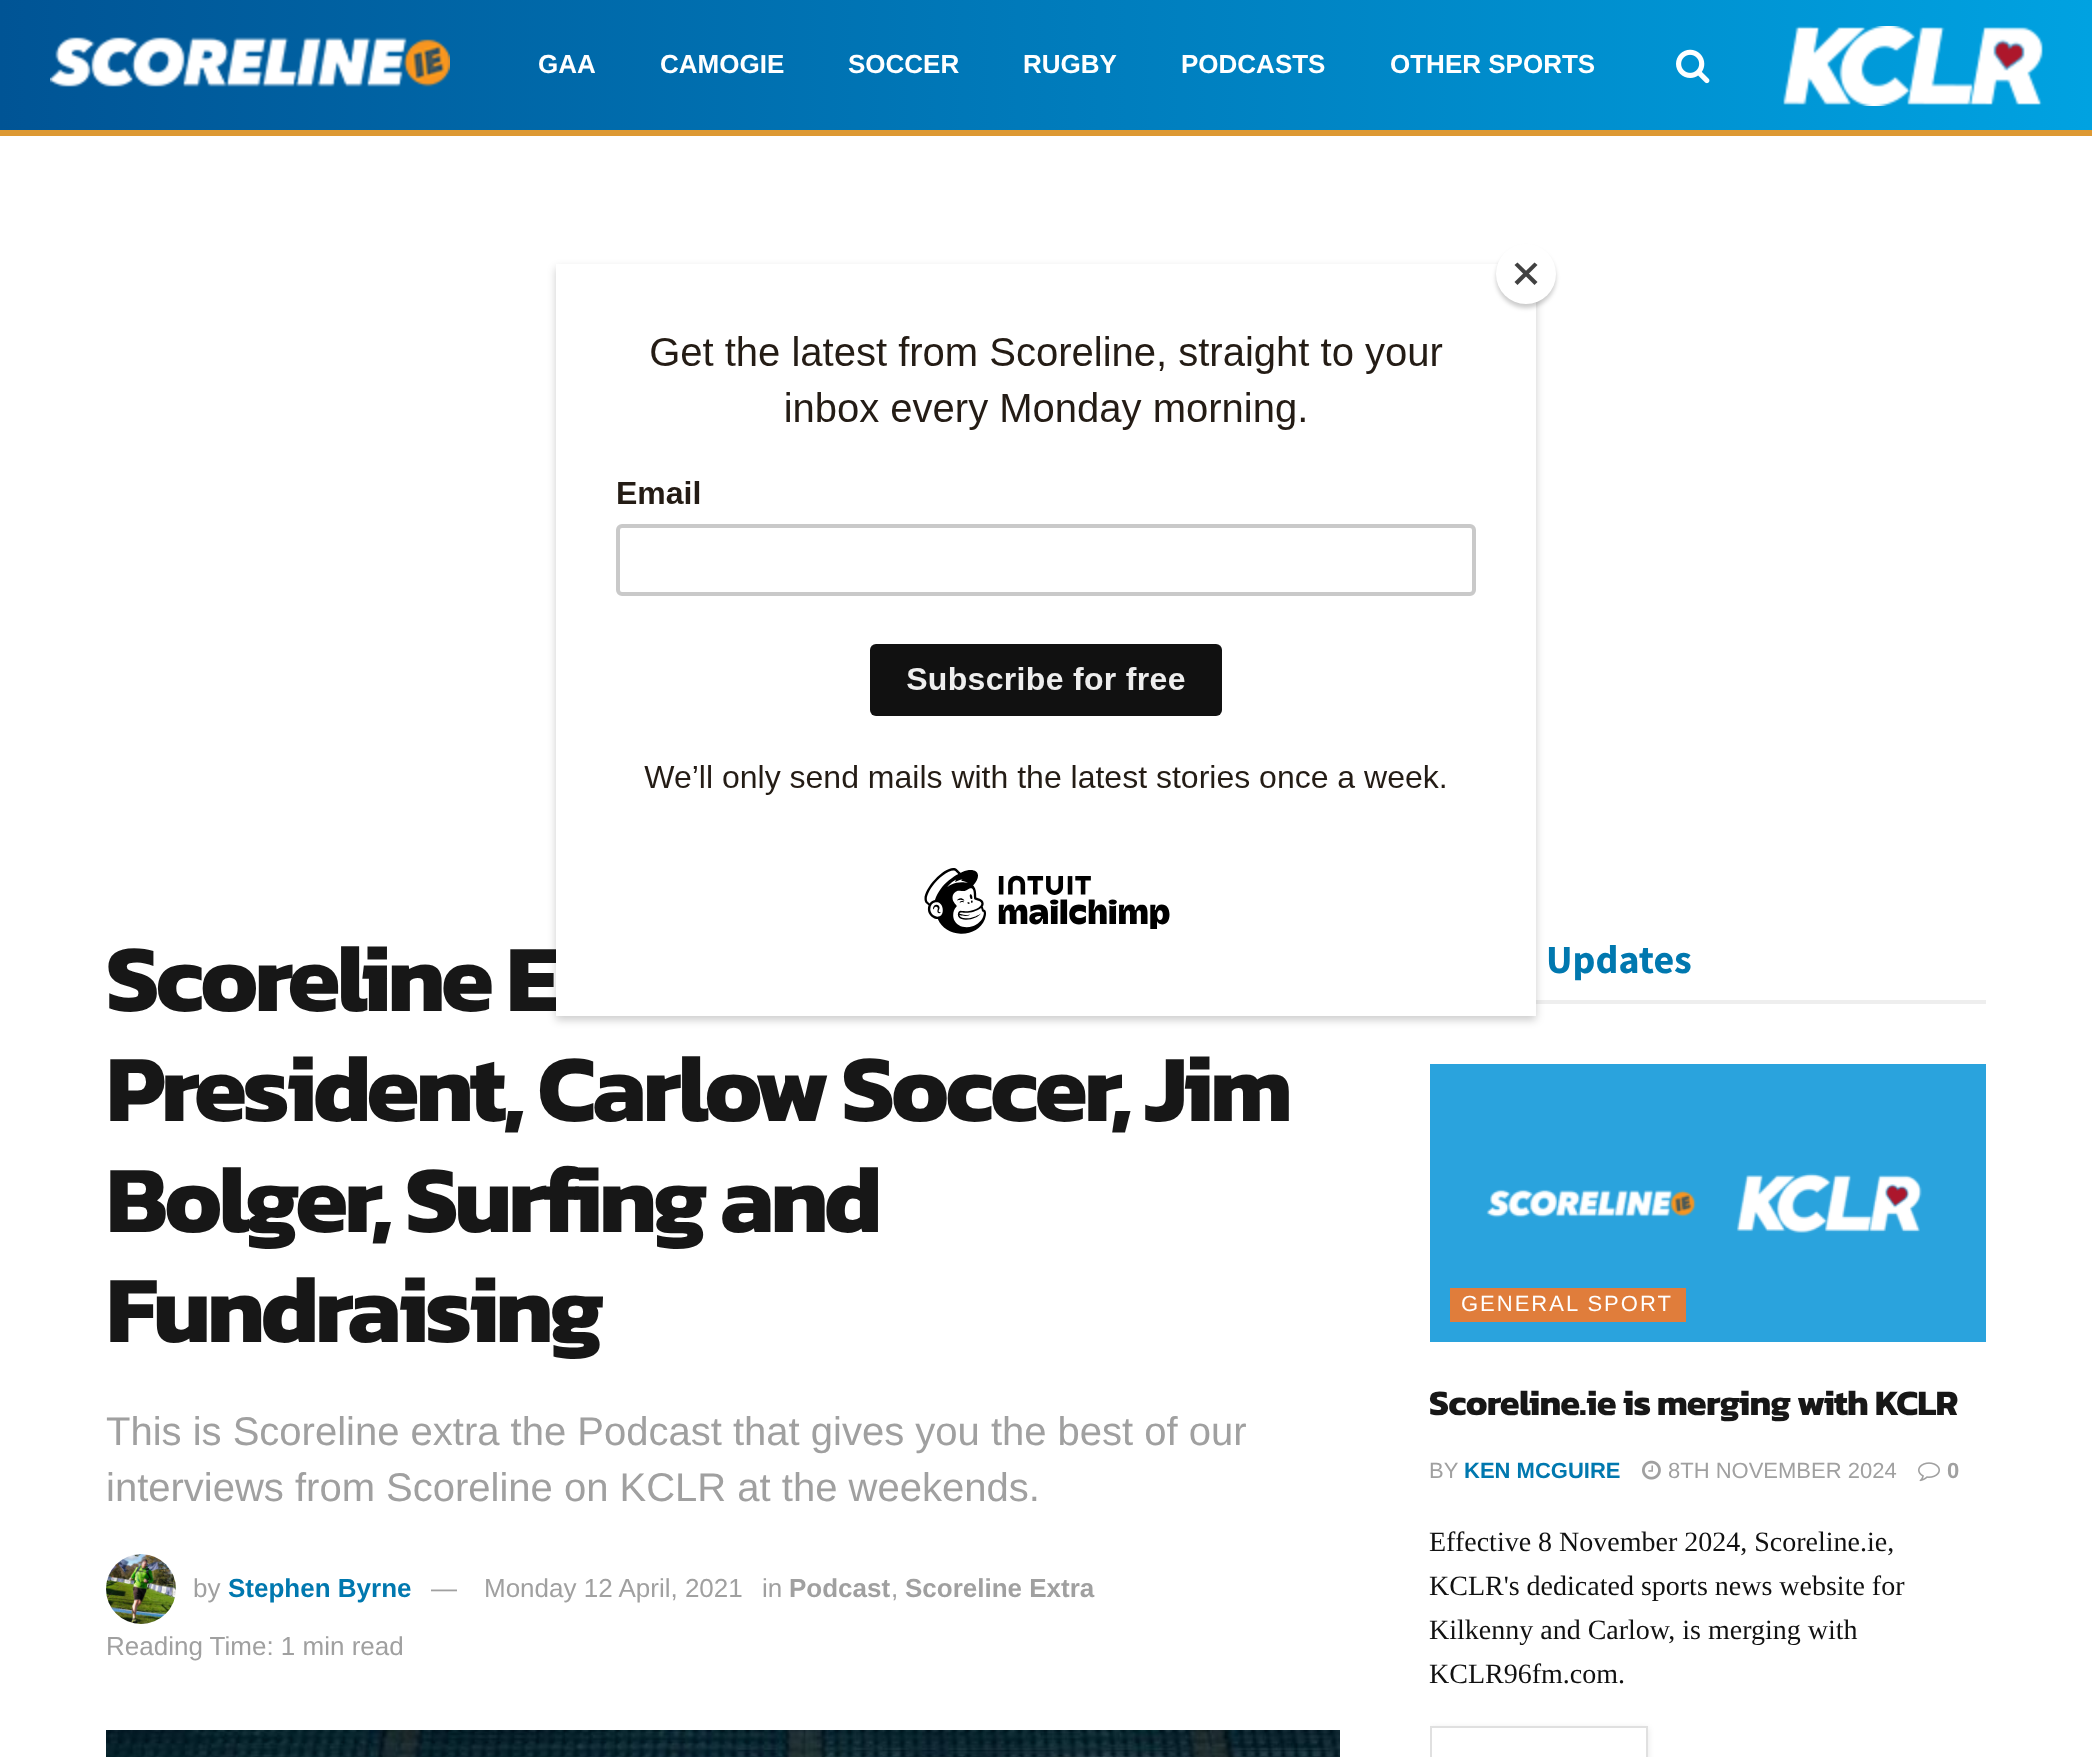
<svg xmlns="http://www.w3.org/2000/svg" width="2092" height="1757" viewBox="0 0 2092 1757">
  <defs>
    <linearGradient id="g1" gradientUnits="userSpaceOnUse" x1="0" y1="65" x2="2092" y2="65"><stop offset="0" stop-color="#005495"/><stop offset="1" stop-color="#00a2e1"/></linearGradient>
    <clipPath id="clip1"><rect x="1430" y="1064" width="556" height="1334"/></clipPath>
    <clipPath id="clip2"><path d="M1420 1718H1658V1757H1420ZM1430 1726H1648V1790H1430Z" clip-rule="evenodd"/></clipPath>
    <filter id="blur1" x="-50%" y="-200%" width="200%" height="500%"><feGaussianBlur stdDeviation="3"/></filter>
    <filter id="blur2" x="-50%" y="-200%" width="200%" height="500%"><feGaussianBlur stdDeviation="2"/></filter>
    <clipPath id="clip3"><path d="M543 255H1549V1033H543ZM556 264H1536V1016H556Z" clip-rule="evenodd"/></clipPath>
    <filter id="blur3" x="-50%" y="-200%" width="200%" height="500%"><feGaussianBlur stdDeviation="4"/></filter>
  </defs>
  <rect width="100%" height="100%" fill="#ffffff"/>
  <rect x="0" y="0" width="2092" height="130" fill="url(#g1)"/>
  <rect x="0" y="130" width="2092" height="6" fill="#dd9933"/>
  <image x="50" y="37" width="400" height="50" href="img1.png"/>
  <text x="538" y="73" font-family="Liberation Sans" font-size="26" font-weight="bold" fill="#ffffff">GAA</text>
  <text x="660" y="73" font-family="Liberation Sans" font-size="26" font-weight="bold" fill="#ffffff">CAMOGIE</text>
  <text x="848" y="73" font-family="Liberation Sans" font-size="26" font-weight="bold" fill="#ffffff">SOCCER</text>
  <text x="1023" y="73" font-family="Liberation Sans" font-size="26" font-weight="bold" fill="#ffffff">RUGBY</text>
  <text x="1181" y="73" font-family="Liberation Sans" font-size="26" font-weight="bold" fill="#ffffff">PODCASTS</text>
  <text x="1390" y="73" font-family="Liberation Sans" font-size="26" font-weight="bold" fill="#ffffff">OTHER SPORTS</text>
  <image x="1676" y="49" width="34" height="35" href="img2.png"/>
  <image x="1783" y="26" width="260" height="80" href="img3.png"/>
  <text x="106" y="1011" font-family="Kanit" font-size="96" font-weight="bold" letter-spacing="-3.85" fill="#171717">Scoreline E</text>
  <text x="106" y="1121" font-family="Kanit" font-size="96" font-weight="bold" letter-spacing="-3.85" fill="#171717">President, Carlow Soccer, Jim</text>
  <text x="106" y="1232" font-family="Kanit" font-size="96" font-weight="bold" letter-spacing="-3.85" fill="#171717">Bolger, Surfing and</text>
  <text x="106" y="1342" font-family="Kanit" font-size="96" font-weight="bold" letter-spacing="-3.85" fill="#171717">Fundraising</text>
  <text x="106" y="1445" font-family="Liberation Sans" font-size="40" fill="#a0a0a0">This is Scoreline extra the Podcast that gives you the best of our</text>
  <text x="106" y="1501" font-family="Liberation Sans" font-size="40" fill="#a0a0a0">interviews from Scoreline on KCLR at the weekends.</text>
  <image x="106" y="1554" width="70" height="70" href="img4.png"/>
  <text x="193" y="1597" font-family="Liberation Sans" font-size="26" fill="#a0a0a0">by</text>
  <text x="228" y="1597" font-family="Liberation Sans" font-size="26" font-weight="bold" fill="#0078af">Stephen Byrne</text>
  <text x="431" y="1597" font-family="Liberation Sans" font-size="26" fill="#a0a0a0">—</text>
  <text x="484" y="1597" font-family="Liberation Sans" font-size="26" fill="#a0a0a0">Monday 12 April, 2021</text>
  <text x="762" y="1597" font-family="Liberation Sans" font-size="26" fill="#a0a0a0">in</text>
  <text x="789" y="1597" font-family="Liberation Sans" font-size="26" font-weight="bold" fill="#a0a0a0">Podcast</text>
  <text x="891" y="1597" font-family="Liberation Sans" font-size="26" fill="#a0a0a0">,</text>
  <text x="905" y="1597" font-family="Liberation Sans" font-size="26" font-weight="bold" fill="#a0a0a0">Scoreline Extra</text>
  <text x="106" y="1655" font-family="Liberation Sans" font-size="26" fill="#a0a0a0">Reading Time: 1 min read</text>
  <image x="106" y="1730" width="1234" height="27" href="img5.png"/>
  <rect x="1536" y="1000" width="450" height="4" fill="#eeeeee"/>
  <text x="1546" y="973" font-family="Source Sans Pro" font-size="40" font-weight="bold" fill="#0078af">Updates</text>
  <image x="1430" y="1064" width="556" height="278" href="img6.png"/>
  <rect x="1450" y="1288" width="236" height="34" fill="#e07d3b"/>
  <text x="1461" y="1311" font-family="Liberation Sans" font-size="22" letter-spacing="2" fill="#ffffff">GENERAL SPORT</text>
  <text x="1429" y="1415" font-family="Kanit" font-size="36" font-weight="bold" letter-spacing="-0.75" fill="#171717">Scoreline.ie is merging with KCLR</text>
  <text x="1429" y="1478" font-family="Liberation Sans" font-size="22" fill="#a0a0a0">BY</text>
  <text x="1464" y="1478" font-family="Liberation Sans" font-size="22" font-weight="bold" fill="#0078af">KEN MCGUIRE</text>
  <image x="1642" y="1460" width="19" height="20" href="img7.png"/>
  <text x="1668" y="1478" font-family="Liberation Sans" font-size="22" fill="#a0a0a0">8TH NOVEMBER 2024</text>
  <image x="1918" y="1462" width="22" height="20" href="img8.png"/>
  <text x="1947" y="1478" font-family="Liberation Sans" font-size="22" font-weight="bold" fill="#a0a0a0">0</text>
  <text x="1429" y="1551" font-family="Liberation Serif" font-size="28" fill="#111111">Effective 8 November 2024, Scoreline.ie,</text>
  <text x="1429" y="1595" font-family="Liberation Serif" font-size="28" fill="#111111">KCLR's dedicated sports news website for</text>
  <text x="1429" y="1639" font-family="Liberation Serif" font-size="28" fill="#111111">Kilkenny and Carlow, is merging with</text>
  <text x="1429" y="1683" font-family="Liberation Serif" font-size="28" fill="#111111">KCLR96fm.com.</text>
  <g clip-path="url(#clip1)">
    <g clip-path="url(#clip2)">
      <rect x="1430" y="1728" width="218" height="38" fill="#000000" fill-opacity="0.1" filter="url(#blur1)"/>
    </g>
  </g>
  <rect x="1431" y="1727" width="216" height="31" fill="none" stroke="#e0e0e0" stroke-width="2"/>
  <rect x="1496" y="248" width="60" height="60" rx="30" fill="#000000" fill-opacity="0.2" filter="url(#blur2)"/>
  <g clip-path="url(#clip3)">
    <rect x="556" y="268" width="980" height="752" fill="#000000" fill-opacity="0.2" filter="url(#blur3)"/>
  </g>
  <circle cx="1526" cy="274" r="30" fill="#ffffff"/>
  <path d="M1534.5 262.5L1537.5 265L1517.5 285L1514.5 282Z" fill="#414141"/>
  <path d="M1514.5 265L1517.5 262.5L1537.5 282L1534.5 285Z" fill="#414141"/>
  <image x="556" y="336" width="980" height="676" href="img9.png"/>
</svg>
